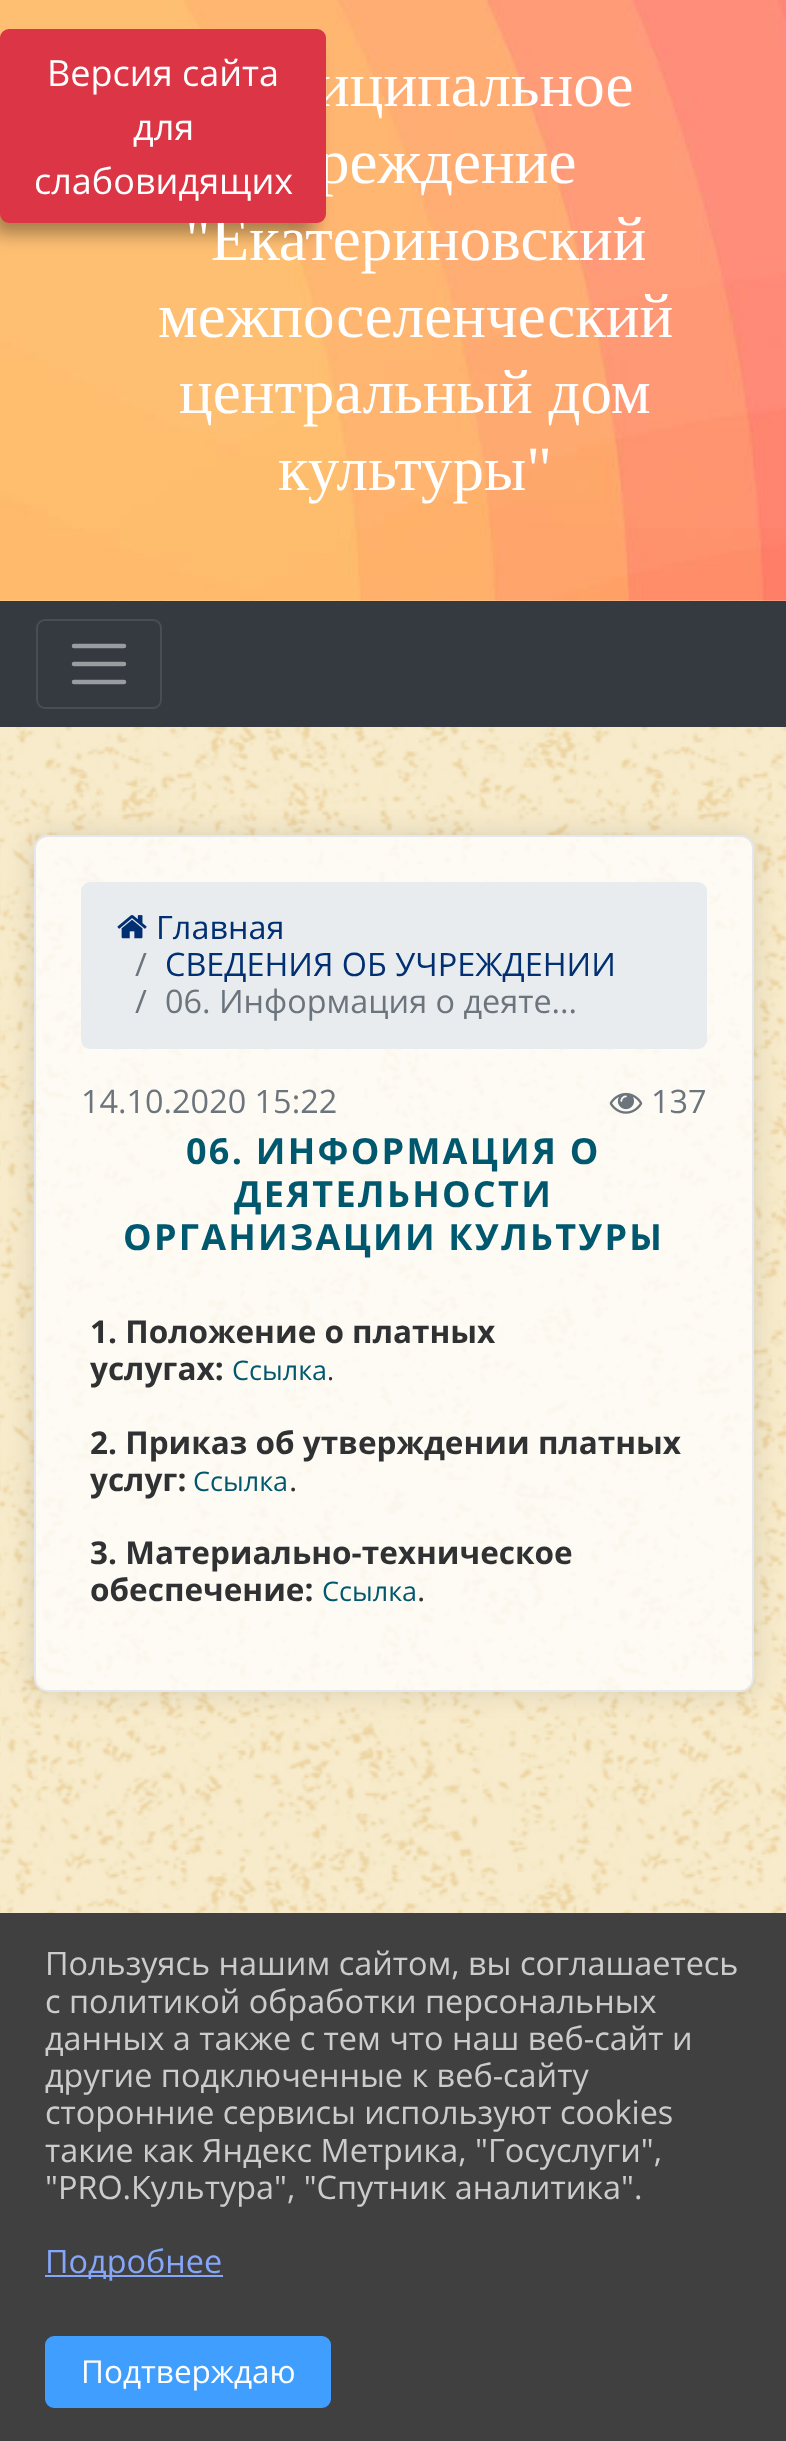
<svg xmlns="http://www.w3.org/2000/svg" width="786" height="2441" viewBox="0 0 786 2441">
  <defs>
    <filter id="blur1" x="-50%" y="-200%" width="200%" height="500%"><feGaussianBlur stdDeviation="9"/></filter>
    <clipPath id="clip1"><path d="M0 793H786V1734H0ZM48 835H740C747.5 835 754 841.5 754 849V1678C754 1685.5 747.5 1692 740 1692H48C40.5 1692 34 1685.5 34 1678V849C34 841.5 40.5 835 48 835Z" clip-rule="evenodd"/></clipPath>
    <filter id="blur2" x="-50%" y="-200%" width="200%" height="500%"><feGaussianBlur stdDeviation="13.5"/></filter>
  </defs>
  <rect width="100%" height="100%" fill="#ffffff"/>
  <image x="0" y="600" width="786" height="1313" href="img1.png"/>
  <image x="0" y="0" width="786" height="601" href="img2.png"/>
  <rect x="-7" y="45" width="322" height="189" rx="7" fill="#000000" fill-opacity="0.35" filter="url(#blur1)"/>
  <text x="316" y="106" font-family="Liberation Serif" font-size="63" fill="#ffffff">иципальное</text>
  <text x="318" y="183" font-family="Liberation Serif" font-size="63" fill="#ffffff">реждение</text>
  <text x="185" y="260" font-family="Liberation Serif" font-size="63" fill="#ffffff">"Екатериновский</text>
  <rect x="1" y="30" width="324" height="192" rx="8" fill="#dc3545" stroke="#dc3545" stroke-width="2"/>
  <text x="47" y="86" font-family="Open Sans" font-size="36" fill="#ffffff">Версия сайта</text>
  <text x="133" y="140" font-family="Open Sans" font-size="36" fill="#ffffff">для</text>
  <text x="34" y="194" font-family="Open Sans" font-size="36" fill="#ffffff">слабовидящих</text>
  <text x="158" y="337" font-family="Liberation Serif" font-size="63" fill="#ffffff">межпоселенческий</text>
  <text x="179" y="413" font-family="Liberation Serif" font-size="63" fill="#ffffff">центральный дом</text>
  <text x="278" y="490" font-family="Liberation Serif" font-size="63" fill="#ffffff">культуры"</text>
  <rect x="0" y="601" width="786" height="126" fill="#343a40"/>
  <rect x="37" y="620" width="124" height="88" rx="8" fill="none" stroke="#484e53" stroke-width="2"/>
  <path d="M74 646H124M74 664H124M74 682H124" fill="none" stroke="#9a9da0" stroke-width="4.5" stroke-linecap="round"/>
  <g clip-path="url(#clip1)">
    <rect x="34" y="835" width="720" height="857" rx="14" fill="#000000" fill-opacity="0.12" filter="url(#blur2)"/>
  </g>
  <rect x="35" y="836" width="718" height="855" rx="13" fill="#ffffff" fill-opacity="0.8" stroke="#e4e7ed" stroke-width="2"/>
  <rect x="81" y="882" width="626" height="167" rx="9" fill="#e9ecef"/>
  <image x="117" y="915" width="30" height="24" href="img3.png"/>
  <text x="156" y="939" font-family="Open Sans" font-size="32.4" fill="#002f72">Главная</text>
  <text x="135" y="976" font-family="Open Sans" font-size="32.4" fill="#6c757d">/</text>
  <text x="165" y="976" font-family="Open Sans" font-size="32.4" fill="#002f72">СВЕДЕНИЯ ОБ УЧРЕЖДЕНИИ</text>
  <text x="135" y="1013" font-family="Open Sans" font-size="32.4" fill="#6c757d">/</text>
  <text x="165" y="1013" font-family="Open Sans" font-size="32.4" fill="#6c757d">06. Информация о деяте...</text>
  <text x="81" y="1113" font-family="Open Sans" font-size="32.4" fill="#6c757d">14.10.2020 15:22</text>
  <image x="609" y="1092" width="34" height="22" href="img4.png"/>
  <text x="651" y="1113" font-family="Open Sans" font-size="32.4" fill="#6c757d">137</text>
  <text x="186" y="1164" font-family="Open Sans" font-size="36" font-weight="bold" letter-spacing="2.25" fill="#00586f">06. ИНФОРМАЦИЯ О</text>
  <text x="234" y="1207" font-family="Open Sans" font-size="36" font-weight="bold" letter-spacing="2.25" fill="#00586f">ДЕЯТЕЛЬНОСТИ</text>
  <text x="123" y="1250" font-family="Open Sans" font-size="36" font-weight="bold" letter-spacing="2.25" fill="#00586f">ОРГАНИЗАЦИИ КУЛЬТУРЫ</text>
  <text x="90" y="1343" font-family="Open Sans" font-size="31.5" font-weight="bold" fill="#303133">1. Положение о платных</text>
  <text x="90" y="1380" font-family="Open Sans" font-size="31.5" font-weight="bold" fill="#303133">услугах:</text>
  <text x="232" y="1380" font-family="Open Sans" font-size="27" fill="#00586f">Ссылка</text>
  <text x="327" y="1380" font-family="Open Sans" font-size="27" fill="#303133">.</text>
  <text x="90" y="1454" font-family="Open Sans" font-size="31.5" font-weight="bold" fill="#303133">2. Приказ об утверждении платных</text>
  <text x="90" y="1491" font-family="Open Sans" font-size="31.5" font-weight="bold" fill="#303133">услуг:</text>
  <text x="193" y="1491" font-family="Open Sans" font-size="27" fill="#00586f">Ссылка</text>
  <text x="289" y="1491" font-family="Open Sans" font-size="31.5" fill="#303133">.</text>
  <text x="90" y="1564" font-family="Open Sans" font-size="31.5" font-weight="bold" fill="#303133">3. Материально-техническое</text>
  <text x="90" y="1601" font-family="Open Sans" font-size="31.5" font-weight="bold" fill="#303133">обеспечение:</text>
  <text x="322" y="1601" font-family="Open Sans" font-size="27" fill="#00586f">Ссылка</text>
  <text x="417" y="1601" font-family="Open Sans" font-size="31.5" fill="#303133">.</text>
  <rect x="0" y="1913" width="786" height="528" fill="#404040"/>
  <text x="45" y="1975" font-family="Open Sans" font-size="32.4" fill="#cccccc">Пользуясь нашим сайтом, вы соглашаетесь</text>
  <text x="45" y="2013" font-family="Open Sans" font-size="32.4" fill="#cccccc">с политикой обработки персональных</text>
  <text x="45" y="2050" font-family="Open Sans" font-size="32.4" fill="#cccccc">данных а также с тем что наш веб-сайт и</text>
  <text x="45" y="2087" font-family="Open Sans" font-size="32.4" fill="#cccccc">другие подключенные к веб-сайту</text>
  <text x="45" y="2124" font-family="Open Sans" font-size="32.4" fill="#cccccc">сторонние сервисы используют cookies</text>
  <text x="45" y="2162" font-family="Open Sans" font-size="32.4" fill="#cccccc">такие как Яндекс Метрика, "Госуслуги",</text>
  <text x="45" y="2199" font-family="Open Sans" font-size="32.4" fill="#cccccc">"PRO.Культура", "Спутник аналитика".</text>
  <rect x="45" y="2275" width="178" height="2" fill="#85a6f9"/>
  <text x="45" y="2273" font-family="Open Sans" font-size="32.4" fill="#85a6f9">Подробнее</text>
  <rect x="46" y="2337" width="284" height="70" rx="8" fill="#409eff" stroke="#409eff" stroke-width="2"/>
  <text x="81" y="2383" font-family="Open Sans" font-size="31.5" fill="#ffffff">Подтверждаю</text>
</svg>
